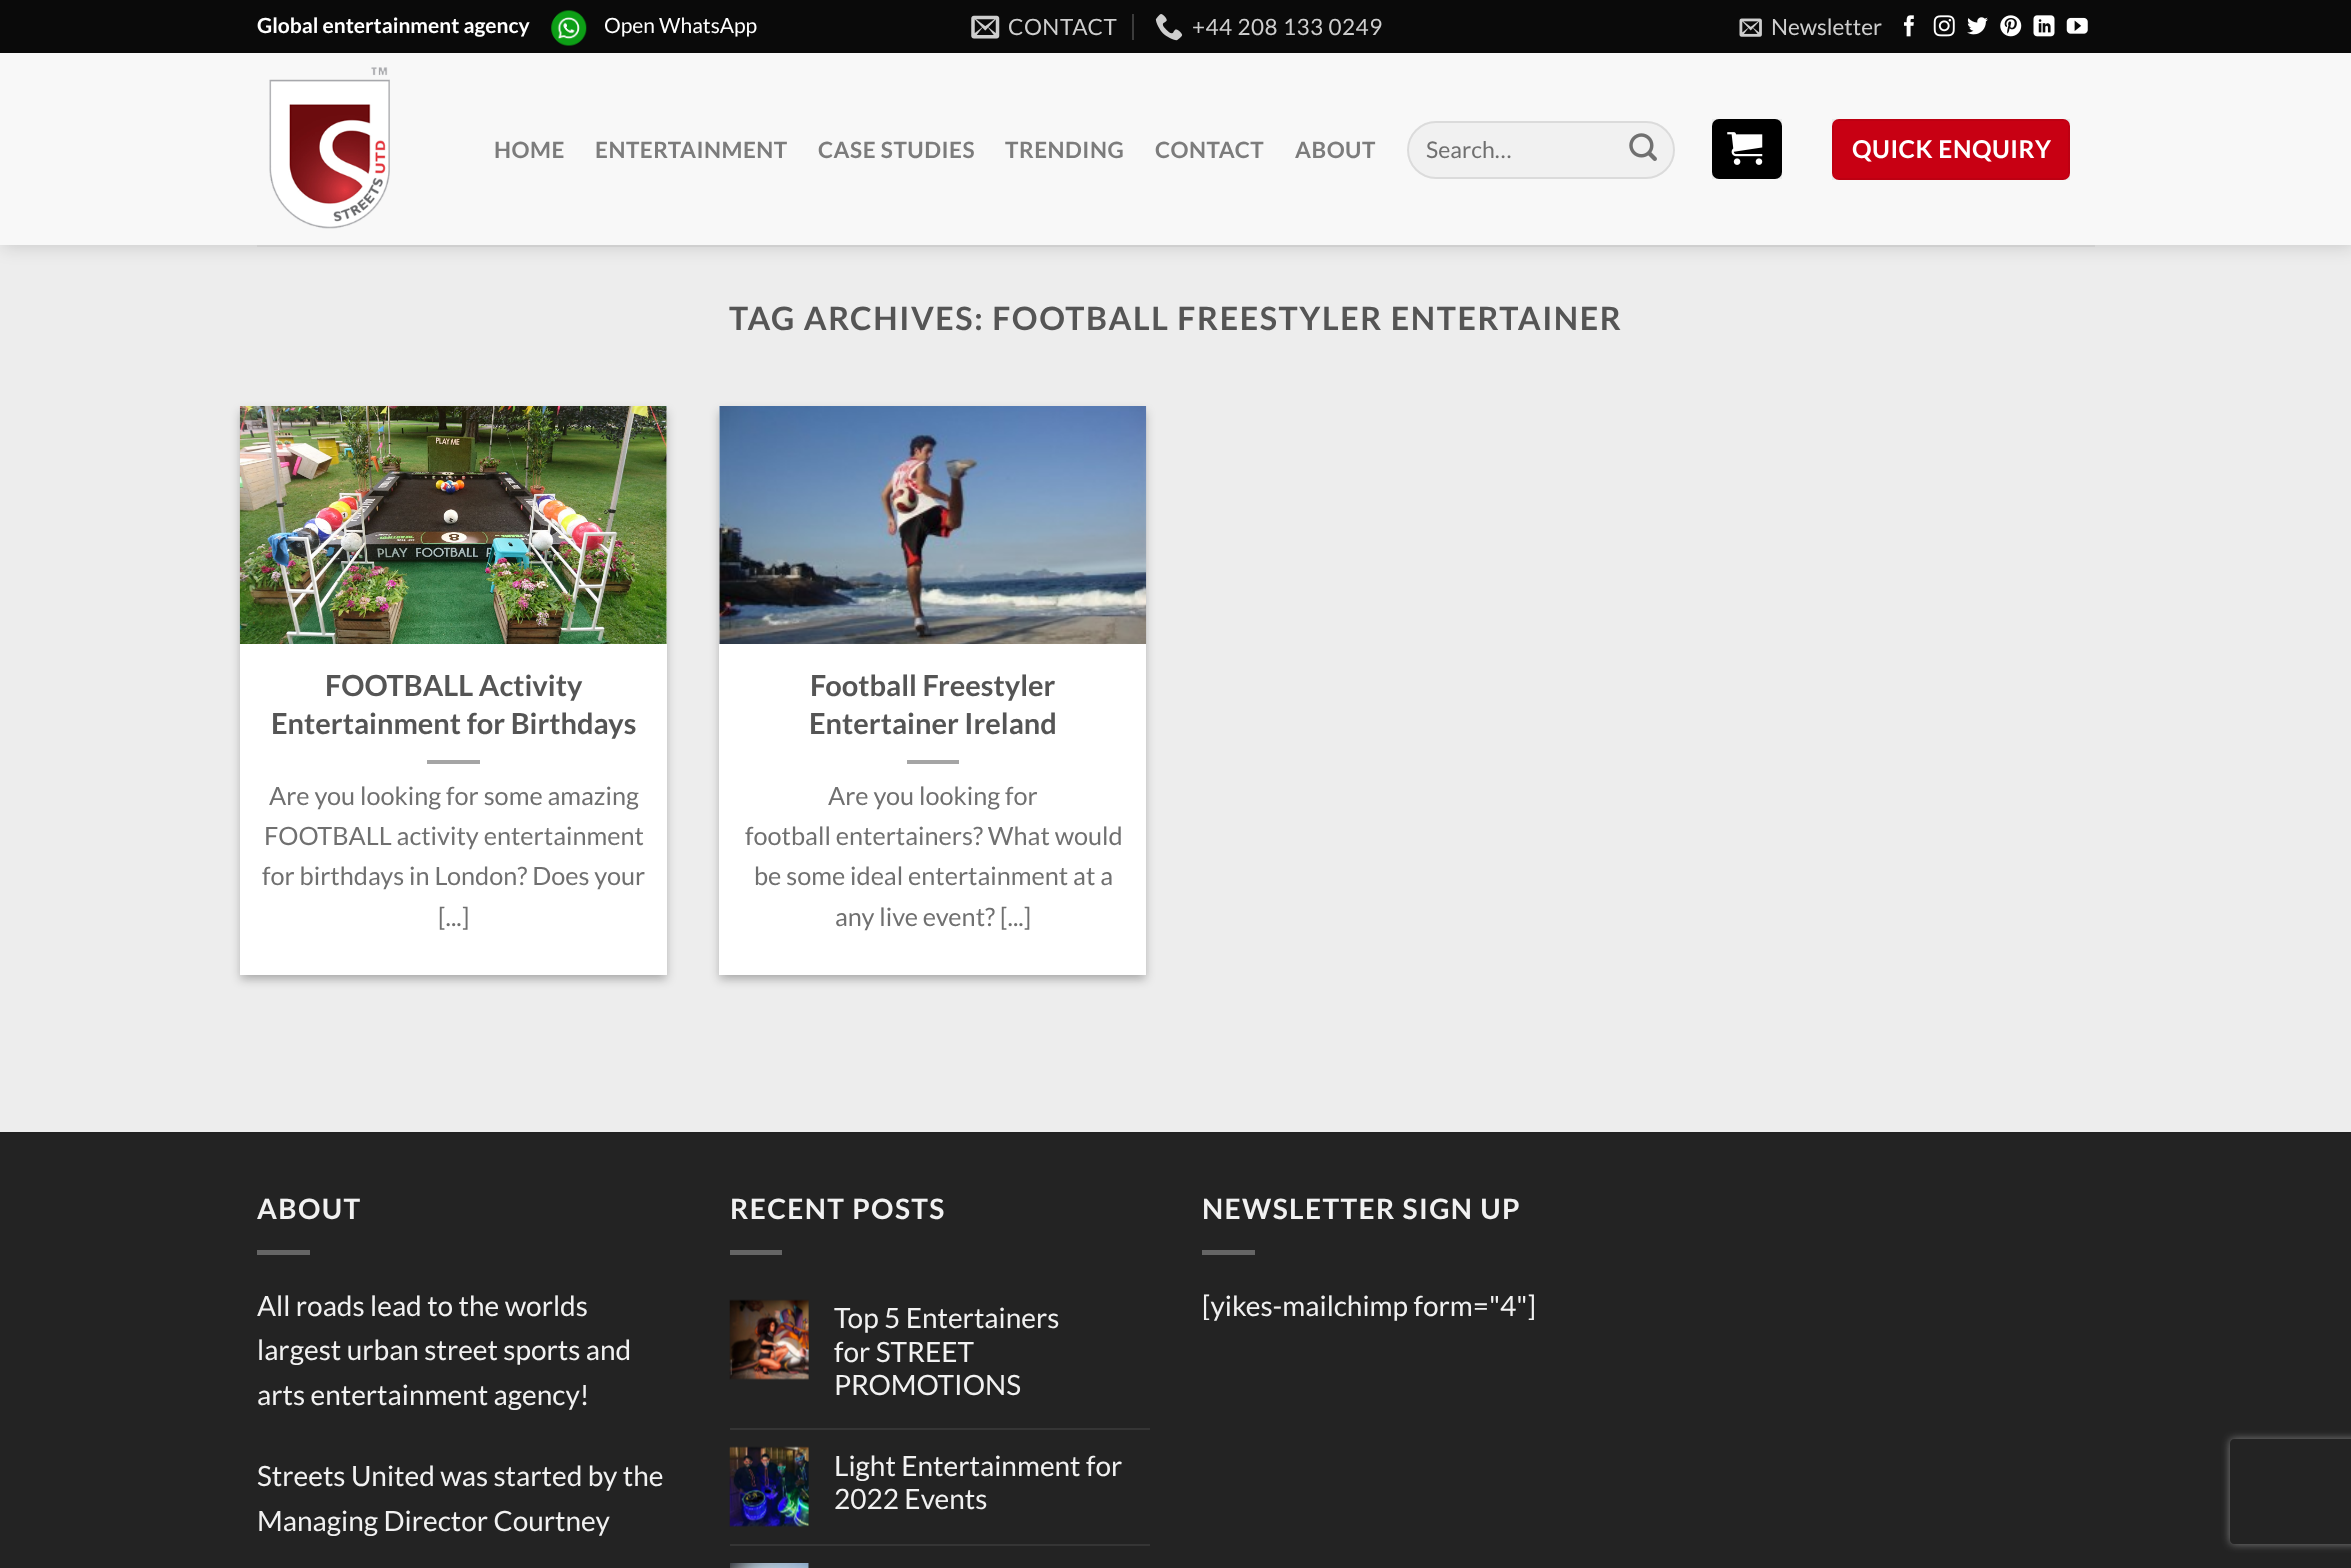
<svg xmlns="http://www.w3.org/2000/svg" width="2351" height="1568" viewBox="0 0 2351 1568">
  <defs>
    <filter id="blur1" x="-50%" y="-200%" width="200%" height="500%"><feGaussianBlur stdDeviation="9"/></filter>
    <filter id="blur2" x="-50%" y="-200%" width="200%" height="500%"><feGaussianBlur stdDeviation="5"/></filter>
    <clipPath id="clip1"><path d="M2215 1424H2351V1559H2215ZM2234 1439H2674C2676 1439 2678 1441 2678 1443V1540C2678 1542 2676 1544 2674 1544H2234C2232 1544 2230 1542 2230 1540V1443C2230 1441 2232 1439 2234 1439Z" clip-rule="evenodd"/></clipPath>
    <filter id="blur3" x="-50%" y="-200%" width="200%" height="500%"><feGaussianBlur stdDeviation="4.5"/></filter>
  </defs>
  <rect width="100%" height="100%" fill="#ededed"/>
  <rect x="2" y="2" width="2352" height="245" fill="#000000" fill-opacity="0.15" filter="url(#blur1)"/>
  <rect x="0" y="0" width="2351" height="53" fill="#0a0a0a"/>
  <text x="257" y="33" font-family="Lato" font-size="21" font-weight="bold" fill="#ffffff">Global entertainment agency</text>
  <image x="551" y="10" width="36" height="36" href="img1.png"/>
  <text x="604" y="33" font-family="Lato" font-size="21" fill="#ffffff">Open WhatsApp</text>
  <image x="971" y="15" width="29" height="24" href="img2.png"/>
  <text x="1008" y="35" font-family="Lato" font-size="22.5" letter-spacing="0.5" fill="#cecece">CONTACT</text>
  <rect x="1132" y="14" width="2" height="26" fill="#3b3b3b"/>
  <image x="1155" y="14" width="28" height="27" href="img3.png"/>
  <text x="1192" y="35" font-family="Lato" font-size="22.5" letter-spacing="0.5" fill="#cecece">+44 208 133 0249</text>
  <image x="1739" y="18" width="23" height="19" href="img4.png"/>
  <text x="1771" y="35" font-family="Lato" font-size="22.5" fill="#cecece">Newsletter</text>
  <image x="1904" y="15" width="10" height="22" href="img5.png"/>
  <image x="1933" y="15" width="22" height="22" href="img6.png"/>
  <image x="1967" y="17" width="21" height="18" href="img7.png"/>
  <image x="2000" y="15" width="22" height="22" href="img8.png"/>
  <image x="2033" y="15" width="22" height="22" href="img9.png"/>
  <image x="2066" y="17" width="22" height="17" href="img10.png"/>
  <rect x="0" y="53" width="2351" height="192" fill="#f8f8f8"/>
  <image x="269" y="67" width="121" height="162" href="img11.png"/>
  <text x="494" y="158" font-family="Lato" font-size="22.5" font-weight="bold" letter-spacing="0.5" fill="#7c7c7c">HOME</text>
  <text x="595" y="158" font-family="Lato" font-size="22.5" font-weight="bold" letter-spacing="0.5" fill="#7c7c7c">ENTERTAINMENT</text>
  <text x="818" y="158" font-family="Lato" font-size="22.5" font-weight="bold" letter-spacing="0.5" fill="#7c7c7c">CASE STUDIES</text>
  <text x="1005" y="158" font-family="Lato" font-size="22.5" font-weight="bold" letter-spacing="0.5" fill="#7c7c7c">TRENDING</text>
  <text x="1155" y="158" font-family="Lato" font-size="22.5" font-weight="bold" letter-spacing="0.5" fill="#7c7c7c">CONTACT</text>
  <text x="1295" y="158" font-family="Lato" font-size="22.5" font-weight="bold" letter-spacing="0.5" fill="#7c7c7c">ABOUT</text>
  <rect x="1407" y="121" width="268" height="58" rx="29" fill="#f1f1f1"/>
  <rect x="1408" y="122" width="266" height="56" rx="28" fill="none" stroke="#000000" stroke-opacity="0.09" stroke-width="2"/>
  <text x="1426" y="158" font-family="Lato" font-size="23" fill="#707070">Search…</text>
  <image x="1629" y="133" width="28" height="28" href="img12.png"/>
  <rect x="1712" y="119" width="70" height="60" rx="7" fill="#000000"/>
  <rect x="1713" y="120" width="68" height="58" fill="none" stroke="#000000" stroke-opacity="0.05" stroke-width="2"/>
  <image x="1727" y="132" width="36" height="33" href="img13.png"/>
  <rect x="1832" y="119" width="238" height="61" rx="7" fill="#c80013"/>
  <rect x="1833" y="120" width="236" height="59" fill="none" stroke="#000000" stroke-opacity="0.05" stroke-width="2"/>
  <text x="1852" y="158" font-family="Lato" font-size="24.5" font-weight="bold" letter-spacing="0.5" fill="#ffffff">QUICK ENQUIRY</text>
  <rect x="257" y="245" width="1838" height="2" fill="#cfcfcf"/>
  <text x="729" y="330" font-family="Lato" font-size="32.2" font-weight="bold" letter-spacing="1.6" fill="#555555">TAG ARCHIVES: FOOTBALL FREESTYLER ENTERTAINER</text>
  <rect x="240" y="411" width="427" height="569" fill="#000000" fill-opacity="0.23" filter="url(#blur2)"/>
  <rect x="247" y="418" width="413" height="555" fill="#000000" fill-opacity="0.16" filter="url(#blur2)"/>
  <rect x="240" y="406" width="427" height="569" fill="#ffffff"/>
  <image x="239" y="406" width="428" height="238" href="img14.png"/>
  <text x="325" y="696" font-family="Lato" font-size="29" font-weight="bold" fill="#555555">FOOTBALL Activity</text>
  <text x="271" y="734" font-family="Lato" font-size="29" font-weight="bold" fill="#555555">Entertainment for Birthdays</text>
  <rect x="427" y="760" width="53" height="4" fill="#a5a5a5"/>
  <text x="269" y="805" font-family="Lato" font-size="25.25" fill="#707070">Are you looking for some amazing</text>
  <text x="264" y="845" font-family="Lato" font-size="25.25" fill="#707070">FOOTBALL activity entertainment</text>
  <text x="262" y="885" font-family="Lato" font-size="25.25" fill="#707070">for birthdays in London? Does your</text>
  <text x="438" y="926" font-family="Lato" font-size="25.25" fill="#707070">[...]</text>
  <rect x="719" y="411" width="427" height="569" fill="#000000" fill-opacity="0.23" filter="url(#blur2)"/>
  <rect x="726" y="418" width="413" height="555" fill="#000000" fill-opacity="0.16" filter="url(#blur2)"/>
  <rect x="719" y="406" width="427" height="569" fill="#ffffff"/>
  <image x="719" y="406" width="428" height="238" href="img15.png"/>
  <text x="810" y="696" font-family="Lato" font-size="29" font-weight="bold" fill="#555555">Football Freestyler</text>
  <text x="809" y="734" font-family="Lato" font-size="29" font-weight="bold" fill="#555555">Entertainer Ireland</text>
  <rect x="907" y="760" width="52" height="4" fill="#a5a5a5"/>
  <text x="828" y="805" font-family="Lato" font-size="25.25" fill="#707070">Are you looking for</text>
  <text x="745" y="845" font-family="Lato" font-size="25.25" fill="#707070">football entertainers? What would</text>
  <text x="754" y="885" font-family="Lato" font-size="25.25" fill="#707070">be some ideal entertainment at a</text>
  <text x="835" y="926" font-family="Lato" font-size="25.25" fill="#707070">any live event? [...]</text>
  <rect x="0" y="1134" width="2351" height="434" fill="#232323"/>
  <rect x="0" y="1132" width="2351" height="2" fill="#212121"/>
  <text x="257" y="1219" font-family="Lato" font-size="28" font-weight="bold" letter-spacing="1.4" fill="#f1f1f1">ABOUT</text>
  <rect x="257" y="1250" width="53" height="5" fill="#656565"/>
  <text x="257" y="1316" font-family="Lato" font-size="28" fill="#f1f1f1">All roads lead to the worlds</text>
  <text x="257" y="1360" font-family="Lato" font-size="28" fill="#f1f1f1">largest urban street sports and</text>
  <text x="257" y="1405" font-family="Lato" font-size="28" fill="#f1f1f1">arts entertainment agency!</text>
  <text x="257" y="1486" font-family="Lato" font-size="28" fill="#f1f1f1">Streets United was started by the</text>
  <text x="257" y="1531" font-family="Lato" font-size="28" fill="#f1f1f1">Managing Director Courtney</text>
  <text x="730" y="1219" font-family="Lato" font-size="28" font-weight="bold" letter-spacing="1.4" fill="#f1f1f1">RECENT POSTS</text>
  <rect x="730" y="1250" width="52" height="5" fill="#656565"/>
  <image x="729" y="1299" width="80" height="81" href="img16.png"/>
  <text x="834" y="1328" font-family="Lato" font-size="28" fill="#f1f1f1">Top 5 Entertainers</text>
  <text x="834" y="1362" font-family="Lato" font-size="28" fill="#f1f1f1">for STREET</text>
  <text x="834" y="1395" font-family="Lato" font-size="28" fill="#f1f1f1">PROMOTIONS</text>
  <rect x="730" y="1428" width="420" height="2" fill="#353535"/>
  <image x="729" y="1446" width="80" height="81" href="img17.png"/>
  <text x="834" y="1476" font-family="Lato" font-size="28" fill="#f1f1f1">Light Entertainment for</text>
  <text x="834" y="1509" font-family="Lato" font-size="28" fill="#f1f1f1">2022 Events</text>
  <rect x="730" y="1544" width="420" height="2" fill="#353535"/>
  <image x="730" y="1563" width="79" height="5" href="img18.png"/>
  <text x="1202" y="1219" font-family="Lato" font-size="28" font-weight="bold" letter-spacing="1.4" fill="#f1f1f1">NEWSLETTER SIGN UP</text>
  <rect x="1202" y="1250" width="53" height="5" fill="#656565"/>
  <text x="1202" y="1316" font-family="Lato" font-size="28" fill="#f1f1f1">[yikes-mailchimp form="4"]</text>
  <g clip-path="url(#clip1)">
    <rect x="2230" y="1439" width="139" height="105" rx="4" fill="#808080" filter="url(#blur3)"/>
  </g>
</svg>
